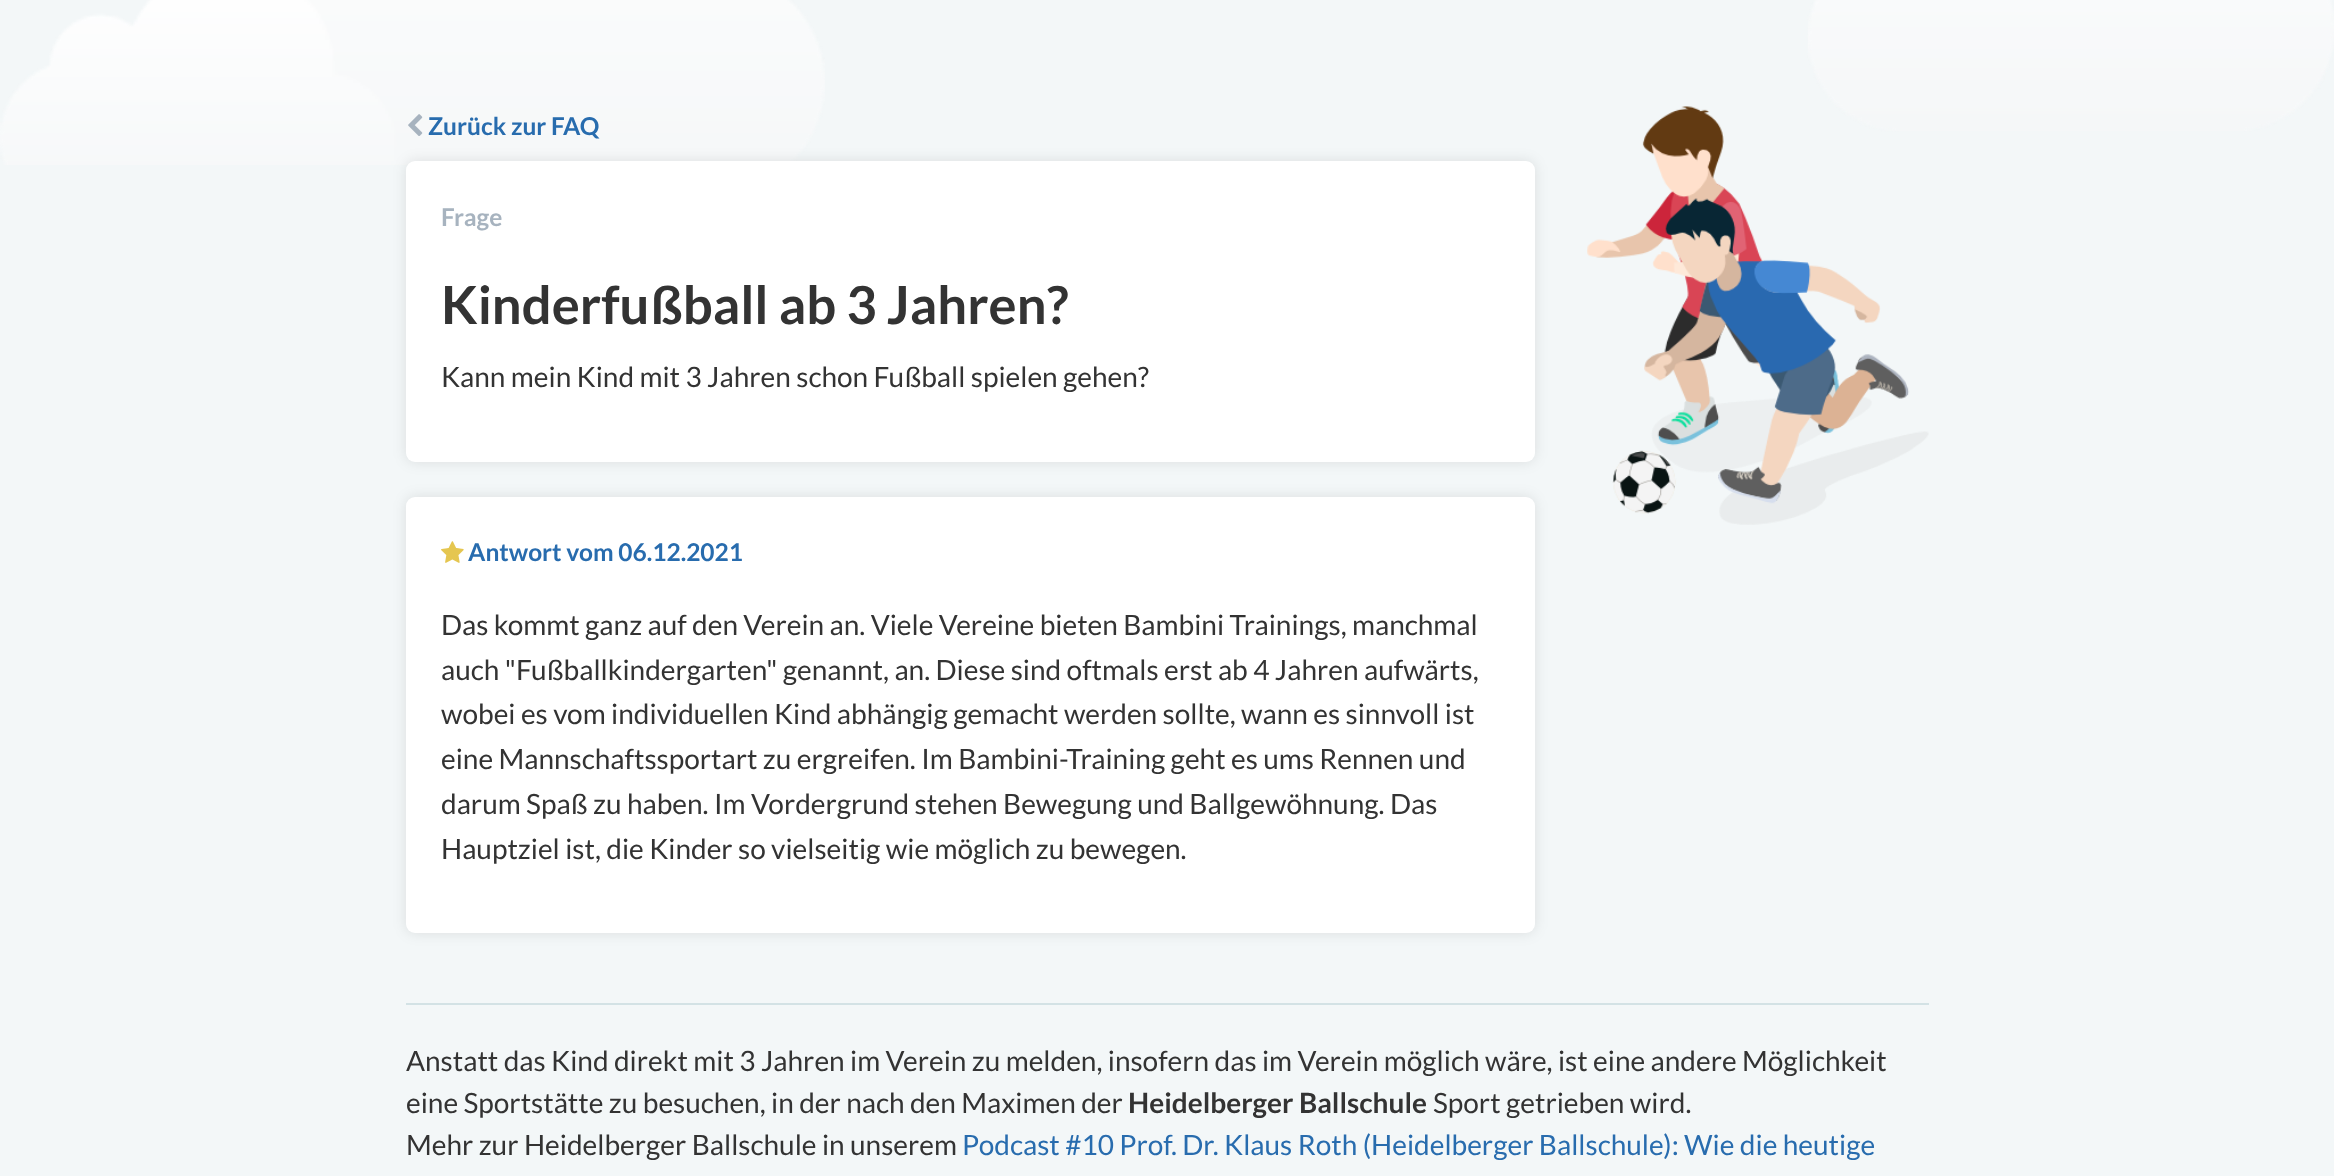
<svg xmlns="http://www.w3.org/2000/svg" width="2334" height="1176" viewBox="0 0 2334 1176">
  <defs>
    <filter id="blur1" x="-50%" y="-200%" width="200%" height="500%"><feGaussianBlur stdDeviation="7"/></filter>
  </defs>
  <rect width="100%" height="100%" fill="#f3f7f8"/>
  <image x="0" y="0" width="2334" height="165" href="img1.png"/>
  <image x="408" y="114" width="15" height="22" href="img2.png"/>
  <text x="428" y="135" font-family="Lato" font-size="24.5" font-weight="bold" fill="#286cae">Zurück zur FAQ</text>
  <rect x="406" y="161" width="1129" height="301" rx="9" fill="#000000" fill-opacity="0.1" filter="url(#blur1)"/>
  <rect x="406" y="161" width="1129" height="301" rx="9" fill="#ffffff"/>
  <text x="441" y="226" font-family="Lato" font-size="24.5" font-weight="bold" fill="#a7b3bf">Frage</text>
  <text x="441" y="324" font-family="Lato" font-size="52.5" font-weight="bold" fill="#333333">Kinderfußball ab 3 Jahren?</text>
  <text x="441" y="387" font-family="Lato" font-size="28" fill="#333333">Kann mein Kind mit 3 Jahren schon Fußball spielen gehen?</text>
  <rect x="406" y="497" width="1129" height="436" rx="9" fill="#000000" fill-opacity="0.1" filter="url(#blur1)"/>
  <rect x="406" y="497" width="1129" height="436" rx="9" fill="#ffffff"/>
  <image x="441" y="541" width="23" height="22" href="img3.png"/>
  <text x="468" y="561" font-family="Lato" font-size="24.5" font-weight="bold" fill="#286cae">Antwort vom 06.12.2021</text>
  <text x="441" y="635" font-family="Lato" font-size="28" fill="#333333">Das kommt ganz auf den Verein an. Viele Vereine bieten Bambini Trainings, manchmal</text>
  <text x="441" y="680" font-family="Lato" font-size="28" fill="#333333">auch "Fußballkindergarten" genannt, an. Diese sind oftmals erst ab 4 Jahren aufwärts,</text>
  <text x="441" y="724" font-family="Lato" font-size="28" fill="#333333">wobei es vom individuellen Kind abhängig gemacht werden sollte, wann es sinnvoll ist</text>
  <text x="441" y="769" font-family="Lato" font-size="28" fill="#333333">eine Mannschaftssportart zu ergreifen. Im Bambini-Training geht es ums Rennen und</text>
  <text x="441" y="814" font-family="Lato" font-size="28" fill="#333333">darum Spaß zu haben. Im Vordergrund stehen Bewegung und Ballgewöhnung. Das</text>
  <text x="441" y="859" font-family="Lato" font-size="28" fill="#333333">Hauptziel ist, die Kinder so vielseitig wie möglich zu bewegen.</text>
  <image x="1587" y="106" width="342" height="419" href="img4.png"/>
  <rect x="406" y="1003" width="1523" height="2" fill="#d3e2e5"/>
  <text x="406" y="1071" font-family="Lato" font-size="28" fill="#333333">Anstatt das Kind direkt mit 3 Jahren im Verein zu melden, insofern das im Verein möglich wäre, ist eine andere Möglichkeit</text>
  <text x="406" y="1113" font-family="Lato" font-size="28" fill="#333333">eine Sportstätte zu besuchen, in der nach den Maximen der</text>
  <text x="1128" y="1113" font-family="Lato" font-size="28" font-weight="bold" fill="#333333">Heidelberger Ballschule</text>
  <text x="1433" y="1113" font-family="Lato" font-size="28" fill="#333333">Sport getrieben wird.</text>
  <text x="406" y="1155" font-family="Lato" font-size="28" fill="#333333">Mehr zur Heidelberger Ballschule in unserem</text>
  <text x="962" y="1155" font-family="Lato" font-size="28" fill="#286cae">Podcast #10 Prof. Dr. Klaus Roth (Heidelberger Ballschule): Wie die heutige</text>
</svg>
